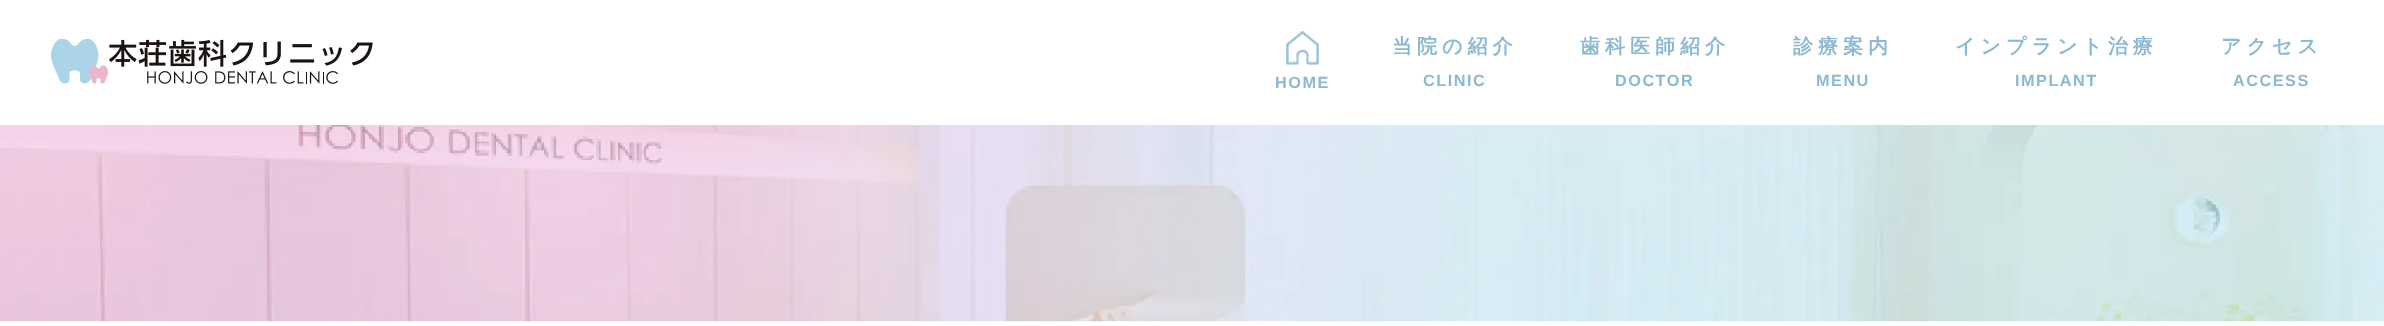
<svg xmlns="http://www.w3.org/2000/svg" width="2384" height="326" viewBox="0 0 2384 326">
  <rect width="100%" height="100%" fill="#ffffff"/>
  <image x="51" y="39" width="322" height="45" href="img1.png"/>
  <image x="1286" y="31" width="33" height="34" href="img2.png"/>
  <text x="1275" y="88" font-family="Liberation Sans" font-size="16.25" font-weight="bold" letter-spacing="1.5" fill="#8bb9d1">HOME</text>
  <text x="1392" y="53" font-family="WenQuanYi Zen Hei" font-size="20" font-weight="bold" letter-spacing="5" fill="#8bb9d1">当院の紹介</text>
  <text x="1423" y="86" font-family="Liberation Sans" font-size="16.25" font-weight="bold" letter-spacing="1.5" fill="#8bb9d1">CLINIC</text>
  <text x="1580" y="53" font-family="WenQuanYi Zen Hei" font-size="20" font-weight="bold" letter-spacing="5" fill="#8bb9d1">歯科医師紹介</text>
  <text x="1615" y="86" font-family="Liberation Sans" font-size="16.25" font-weight="bold" letter-spacing="1.5" fill="#8bb9d1">DOCTOR</text>
  <text x="1793" y="53" font-family="WenQuanYi Zen Hei" font-size="20" font-weight="bold" letter-spacing="5" fill="#8bb9d1">診療案内</text>
  <text x="1816" y="86" font-family="Liberation Sans" font-size="16.25" font-weight="bold" letter-spacing="1.5" fill="#8bb9d1">MENU</text>
  <text x="1955" y="53" font-family="WenQuanYi Zen Hei" font-size="20" font-weight="bold" letter-spacing="5" fill="#8bb9d1">インプラント治療</text>
  <text x="2015" y="86" font-family="Liberation Sans" font-size="16.25" font-weight="bold" letter-spacing="1.5" fill="#8bb9d1">IMPLANT</text>
  <text x="2221" y="53" font-family="WenQuanYi Zen Hei" font-size="20" font-weight="bold" letter-spacing="5" fill="#8bb9d1">アクセス</text>
  <text x="2233" y="86" font-family="Liberation Sans" font-size="16.25" font-weight="bold" letter-spacing="1.5" fill="#8bb9d1">ACCESS</text>
  <image x="0" y="125" width="2384" height="197" href="img3.png"/>
</svg>
